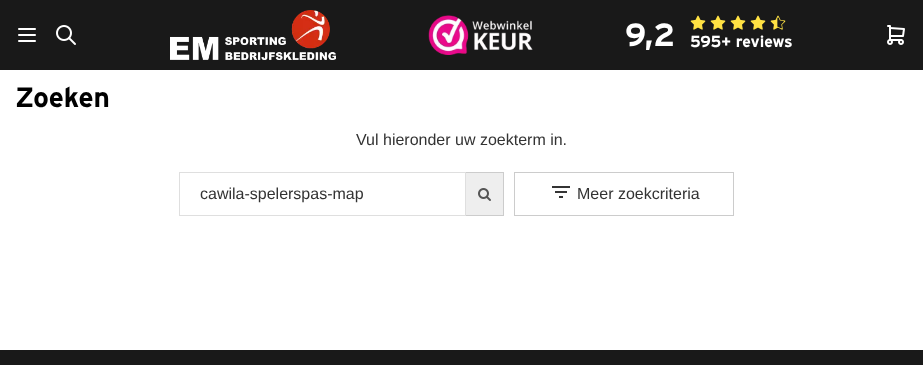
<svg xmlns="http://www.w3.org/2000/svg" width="923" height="365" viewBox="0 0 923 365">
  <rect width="100%" height="100%" fill="#ffffff"/>
  <rect x="0" y="0" width="923" height="70" fill="#191919"/>
  <image x="18" y="28" width="18" height="14" href="img1.png"/>
  <image x="56" y="25" width="20" height="20" href="img2.png"/>
  <image x="170" y="10" width="166" height="50" href="img3.png"/>
  <image x="428" y="15" width="105" height="40" href="img4.png"/>
  <text x="625" y="46" font-family="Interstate" font-size="32" font-weight="bold" fill="#ffffff">9,2</text>
  <image x="690" y="15" width="16" height="15" href="img5.png"/>
  <image x="710" y="15" width="16" height="15" href="img5.png"/>
  <image x="730" y="15" width="16" height="15" href="img5.png"/>
  <image x="750" y="15" width="16" height="15" href="img5.png"/>
  <image x="770" y="15" width="16" height="15" href="img6.png"/>
  <text x="690" y="47" font-family="Interstate" font-size="16" font-weight="bold" fill="#ffffff">595+ reviews</text>
  <image x="887" y="25" width="18" height="20" href="img7.png"/>
  <text x="15" y="107" font-family="Interstate" font-size="28" font-weight="bold" fill="#000000">Zoeken</text>
  <text x="356" y="145" font-family="Liberation Sans" font-size="16" fill="#333333">Vul hieronder uw zoekterm in.</text>
  <rect x="179.5" y="172.5" width="286" height="43" fill="none" stroke="#dfdfdf"/>
  <text x="200" y="199" font-family="Liberation Sans" font-size="16" fill="#333333">cawila-spelerspas-map</text>
  <rect x="466" y="173" width="37" height="42" fill="#eeeeee"/>
  <rect x="466" y="172" width="38" height="1" fill="#cccccc"/>
  <rect x="503" y="172" width="1" height="44" fill="#cccccc"/>
  <rect x="466" y="215" width="38" height="1" fill="#cccccc"/>
  <image x="478" y="188" width="13" height="13" href="img8.png"/>
  <rect x="514.5" y="172.5" width="219" height="43" fill="none" stroke="#cccccc"/>
  <image x="552" y="186" width="18" height="12" href="img9.png"/>
  <text x="577" y="199" font-family="Liberation Sans" font-size="16" fill="#333333">Meer zoekcriteria</text>
  <rect x="0" y="350" width="923" height="15" fill="#191919"/>
</svg>
